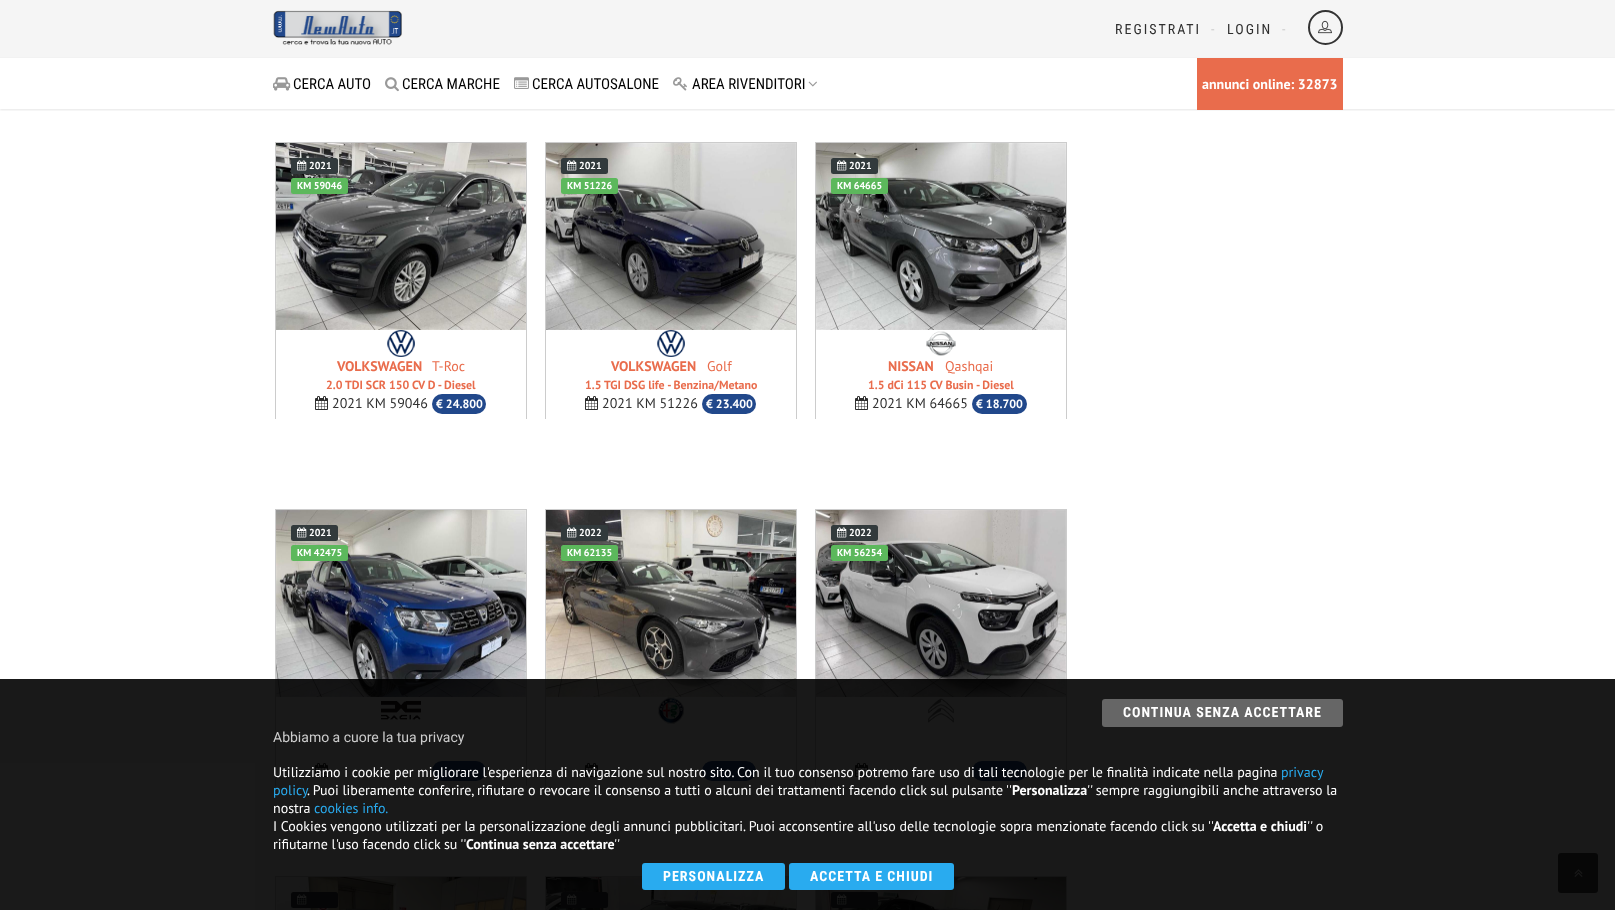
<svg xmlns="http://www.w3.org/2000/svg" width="1615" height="910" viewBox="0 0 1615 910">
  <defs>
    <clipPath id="clip1"><rect x="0" y="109" width="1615" height="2"/></clipPath>
    <filter id="blur1" x="-50%" y="-200%" width="200%" height="500%"><feGaussianBlur stdDeviation="1"/></filter>
  </defs>
  <rect width="100%" height="100%" fill="#ffffff"/>
  <g clip-path="url(#clip1)">
    <rect x="0" y="58" width="1615" height="52" fill="#000000" fill-opacity="0.1" filter="url(#blur1)"/>
  </g>
  <rect x="0" y="57" width="1615" height="1" fill="#f2f2f2"/>
  <rect x="0" y="0" width="1615" height="57" fill="#f5f5f5"/>
  <image x="273" y="10" width="129" height="35" href="img1.png"/>
  <text x="1115" y="34" font-family="Roboto Condensed" font-size="14" letter-spacing="2" fill="#2f2f2f">REGISTRATI</text>
  <text x="1211" y="34" font-family="Roboto Condensed" font-size="14" letter-spacing="2" fill="#cccccc">-</text>
  <text x="1227" y="34" font-family="Roboto Condensed" font-size="14" letter-spacing="2" fill="#2f2f2f">LOGIN</text>
  <text x="1282" y="34" font-family="Roboto Condensed" font-size="14" letter-spacing="2" fill="#cccccc">-</text>
  <circle cx="1325.5" cy="27.5" r="16.5" fill="none" stroke="#333333" stroke-width="2"/>
  <image x="1318" y="20" width="14" height="14" href="img2.png"/>
  <image x="273" y="77" width="18" height="14" href="img3.png"/>
  <text x="293" y="89" font-family="Roboto Condensed" font-size="15" fill="#000000">CERCA AUTO</text>
  <image x="385" y="77" width="14" height="15" href="img4.png"/>
  <text x="402" y="89" font-family="Roboto Condensed" font-size="15" fill="#000000">CERCA MARCHE</text>
  <image x="514" y="77" width="15" height="12" href="img5.png"/>
  <text x="532" y="89" font-family="Roboto Condensed" font-size="15" fill="#000000">CERCA AUTOSALONE</text>
  <image x="673" y="77" width="14" height="14" href="img6.png"/>
  <text x="692" y="89" font-family="Roboto Condensed" font-size="15" fill="#000000">AREA RIVENDITORI</text>
  <image x="808" y="81" width="9" height="6" href="img7.png"/>
  <rect x="1197" y="58" width="146" height="52" fill="#e96c4c"/>
  <text x="1202" y="89" font-family="PT Sans" font-size="14" font-weight="bold" fill="#ffffff">annunci online: 32873</text>
  <rect x="275" y="142" width="252" height="1" fill="#cccccc"/>
  <rect x="526" y="142" width="1" height="277" fill="#cccccc"/>
  <rect x="275" y="142" width="1" height="277" fill="#cccccc"/>
  <image x="276" y="143" width="250" height="187" href="img8.png"/>
  <rect x="291" y="158" width="47" height="16" rx="2.5" fill="#323a3c"/>
  <image x="297" y="160" width="10" height="11" href="img9.png"/>
  <text x="309" y="169" font-family="PT Sans" font-size="10" font-weight="bold" fill="#ffffff">2021</text>
  <rect x="291" y="178" width="57" height="16" rx="2.5" fill="#5cb85c"/>
  <text x="297" y="189" font-family="PT Sans" font-size="10" font-weight="bold" fill="#ffffff">KM 59046</text>
  <image x="387" y="330" width="28" height="27" href="img10.png"/>
  <text x="337" y="371" font-family="PT Sans" font-size="14" font-weight="bold" fill="#e96c4c">VOLKSWAGEN</text>
  <text x="432" y="371" font-family="PT Sans" font-size="14" fill="#e96c4c">T-Roc</text>
  <text x="326" y="389" font-family="PT Sans" font-size="11.9" font-weight="bold" fill="#e96c4c">2.0 TDI SCR 150 CV D - Diesel</text>
  <image x="315" y="396" width="13" height="14" href="img11.png"/>
  <text x="332" y="408" font-family="PT Sans" font-size="14" fill="#2f2f2f">2021 KM 59046</text>
  <rect x="432" y="394" width="54" height="20" rx="10" fill="#21488b"/>
  <text x="436" y="408" font-family="PT Sans" font-size="12" font-weight="bold" fill="#ffffff">€ 24.800</text>
  <rect x="545" y="142" width="252" height="1" fill="#cccccc"/>
  <rect x="796" y="142" width="1" height="277" fill="#cccccc"/>
  <rect x="545" y="142" width="1" height="277" fill="#cccccc"/>
  <image x="546" y="143" width="250" height="187" href="img12.png"/>
  <rect x="561" y="158" width="47" height="16" rx="2.5" fill="#323a3c"/>
  <image x="567" y="160" width="10" height="11" href="img9.png"/>
  <text x="579" y="169" font-family="PT Sans" font-size="10" font-weight="bold" fill="#ffffff">2021</text>
  <rect x="561" y="178" width="57" height="16" rx="2.5" fill="#5cb85c"/>
  <text x="567" y="189" font-family="PT Sans" font-size="10" font-weight="bold" fill="#ffffff">KM 51226</text>
  <image x="657" y="330" width="28" height="27" href="img13.png"/>
  <text x="611" y="371" font-family="PT Sans" font-size="14" font-weight="bold" fill="#e96c4c">VOLKSWAGEN</text>
  <text x="707" y="371" font-family="PT Sans" font-size="14" fill="#e96c4c">Golf</text>
  <text x="585" y="389" font-family="PT Sans" font-size="11.9" font-weight="bold" fill="#e96c4c">1.5 TGI DSG life - Benzina/Metano</text>
  <image x="585" y="396" width="13" height="14" href="img11.png"/>
  <text x="602" y="408" font-family="PT Sans" font-size="14" fill="#2f2f2f">2021 KM 51226</text>
  <rect x="702" y="394" width="54" height="20" rx="10" fill="#21488b"/>
  <text x="706" y="408" font-family="PT Sans" font-size="12" font-weight="bold" fill="#ffffff">€ 23.400</text>
  <rect x="815" y="142" width="252" height="1" fill="#cccccc"/>
  <rect x="1066" y="142" width="1" height="277" fill="#cccccc"/>
  <rect x="815" y="142" width="1" height="277" fill="#cccccc"/>
  <image x="816" y="143" width="250" height="187" href="img14.png"/>
  <rect x="831" y="158" width="47" height="16" rx="2.5" fill="#323a3c"/>
  <image x="837" y="160" width="10" height="11" href="img9.png"/>
  <text x="849" y="169" font-family="PT Sans" font-size="10" font-weight="bold" fill="#ffffff">2021</text>
  <rect x="831" y="178" width="57" height="16" rx="2.5" fill="#5cb85c"/>
  <text x="837" y="189" font-family="PT Sans" font-size="10" font-weight="bold" fill="#ffffff">KM 64665</text>
  <image x="926" y="331" width="30" height="25" href="img15.png"/>
  <text x="888" y="371" font-family="PT Sans" font-size="14" font-weight="bold" fill="#e96c4c">NISSAN</text>
  <text x="945" y="371" font-family="PT Sans" font-size="14" fill="#e96c4c">Qashqai</text>
  <text x="868" y="389" font-family="PT Sans" font-size="11.9" font-weight="bold" fill="#e96c4c">1.5 dCi 115 CV Busin - Diesel</text>
  <image x="855" y="396" width="13" height="14" href="img11.png"/>
  <text x="872" y="408" font-family="PT Sans" font-size="14" fill="#2f2f2f">2021 KM 64665</text>
  <rect x="972" y="394" width="55" height="20" rx="10" fill="#21488b"/>
  <text x="976" y="408" font-family="PT Sans" font-size="12" font-weight="bold" fill="#ffffff">€ 18.700</text>
  <rect x="275" y="509" width="252" height="1" fill="#cccccc"/>
  <rect x="526" y="509" width="1" height="277" fill="#cccccc"/>
  <rect x="275" y="509" width="1" height="277" fill="#cccccc"/>
  <image x="276" y="510" width="250" height="187" href="img16.png"/>
  <rect x="291" y="525" width="47" height="16" rx="2.5" fill="#323a3c"/>
  <image x="297" y="527" width="10" height="11" href="img9.png"/>
  <text x="309" y="536" font-family="PT Sans" font-size="10" font-weight="bold" fill="#ffffff">2021</text>
  <rect x="291" y="545" width="57" height="16" rx="2.5" fill="#5cb85c"/>
  <text x="297" y="556" font-family="PT Sans" font-size="10" font-weight="bold" fill="#ffffff">KM 42475</text>
  <image x="381" y="701" width="40" height="19" href="img17.png"/>
  <image x="315" y="763" width="13" height="14" href="img11.png"/>
  <rect x="432" y="761" width="54" height="20" rx="10" fill="#21488b"/>
  <rect x="545" y="509" width="252" height="1" fill="#cccccc"/>
  <rect x="796" y="509" width="1" height="277" fill="#cccccc"/>
  <rect x="545" y="509" width="1" height="277" fill="#cccccc"/>
  <image x="546" y="510" width="250" height="187" href="img18.png"/>
  <rect x="561" y="525" width="47" height="16" rx="2.5" fill="#323a3c"/>
  <image x="567" y="527" width="10" height="11" href="img9.png"/>
  <text x="579" y="536" font-family="PT Sans" font-size="10" font-weight="bold" fill="#ffffff">2022</text>
  <rect x="561" y="545" width="57" height="16" rx="2.5" fill="#5cb85c"/>
  <text x="567" y="556" font-family="PT Sans" font-size="10" font-weight="bold" fill="#ffffff">KM 62135</text>
  <image x="658" y="697" width="26" height="27" href="img19.png"/>
  <image x="585" y="763" width="13" height="14" href="img11.png"/>
  <rect x="702" y="761" width="54" height="20" rx="10" fill="#21488b"/>
  <rect x="815" y="509" width="252" height="1" fill="#cccccc"/>
  <rect x="1066" y="509" width="1" height="277" fill="#cccccc"/>
  <rect x="815" y="509" width="1" height="277" fill="#cccccc"/>
  <image x="816" y="510" width="250" height="187" href="img20.png"/>
  <rect x="831" y="525" width="47" height="16" rx="2.5" fill="#323a3c"/>
  <image x="837" y="527" width="10" height="11" href="img9.png"/>
  <text x="849" y="536" font-family="PT Sans" font-size="10" font-weight="bold" fill="#ffffff">2022</text>
  <rect x="831" y="545" width="57" height="16" rx="2.5" fill="#5cb85c"/>
  <text x="837" y="556" font-family="PT Sans" font-size="10" font-weight="bold" fill="#ffffff">KM 56254</text>
  <image x="928" y="698" width="26" height="25" href="img21.png"/>
  <image x="855" y="763" width="13" height="14" href="img11.png"/>
  <rect x="972" y="761" width="55" height="20" rx="10" fill="#21488b"/>
  <rect x="275" y="876" width="252" height="1" fill="#cccccc"/>
  <rect x="526" y="876" width="1" height="34" fill="#cccccc"/>
  <rect x="275" y="876" width="1" height="34" fill="#cccccc"/>
  <image x="276" y="877" width="250" height="33" href="img22.png"/>
  <rect x="291" y="892" width="47" height="16" rx="2.5" fill="#323a3c"/>
  <image x="297" y="894" width="10" height="11" href="img9.png"/>
  <rect x="545" y="876" width="252" height="1" fill="#cccccc"/>
  <rect x="796" y="890" width="1" height="20" fill="#cccccc"/>
  <rect x="545" y="876" width="1" height="34" fill="#cccccc"/>
  <image x="546" y="877" width="250" height="33" href="img23.png"/>
  <rect x="561" y="892" width="47" height="16" rx="2.5" fill="#323a3c"/>
  <image x="567" y="894" width="10" height="11" href="img9.png"/>
  <rect x="954" y="876" width="113" height="1" fill="#cccccc"/>
  <rect x="1066" y="876" width="1" height="34" fill="#cccccc"/>
  <rect x="815" y="890" width="1" height="20" fill="#cccccc"/>
  <image x="816" y="877" width="250" height="33" href="img24.png"/>
  <rect x="831" y="892" width="47" height="16" rx="2.5" fill="#323a3c"/>
  <image x="837" y="894" width="10" height="11" href="img9.png"/>
  <rect x="1558" y="853" width="40" height="40" rx="3" fill="#4d4d4d"/>
  <image x="1574" y="869" width="9" height="8" href="img25.png"/>
  <rect x="0" y="679" width="1615" height="231" fill="#000000" fill-opacity="0.9"/>
  <rect x="1102" y="699" width="241" height="28" rx="3" fill="#666666"/>
  <text x="1123" y="717" font-family="Roboto Condensed" font-size="14" font-weight="bold" letter-spacing="1" fill="#ffffff">CONTINUA SENZA ACCETTARE</text>
  <text x="273" y="742" font-family="Roboto" font-size="14" fill="#cccccc">Abbiamo a cuore la tua privacy</text>
  <text x="273" y="777" font-family="PT Sans" font-size="14" fill="#ffffff">Utilizziamo i cookie per migliorare l'esperienza di navigazione sul nostro sito. Con il tuo consenso potremo fare uso di tali tecnologie per le finalità indicate nella pagina</text>
  <text x="1281" y="777" font-family="PT Sans" font-size="14" fill="#29abef">privacy</text>
  <text x="273" y="795" font-family="PT Sans" font-size="14" fill="#29abef">policy</text>
  <text x="307" y="795" font-family="PT Sans" font-size="14" fill="#ffffff">. Puoi liberamente conferire, rifiutare o revocare il consenso a tutti o alcuni dei trattamenti facendo click sul pulsante ''</text>
  <text x="1012" y="795" font-family="PT Sans" font-size="14" font-weight="bold" fill="#ffffff">Personalizza</text>
  <text x="1087" y="795" font-family="PT Sans" font-size="14" fill="#ffffff">'' sempre raggiungibili anche attraverso la</text>
  <text x="273" y="813" font-family="PT Sans" font-size="14" fill="#ffffff">nostra</text>
  <text x="314" y="813" font-family="PT Sans" font-size="14" fill="#29abef">cookies info.</text>
  <text x="273" y="831" font-family="PT Sans" font-size="14" fill="#ffffff">I Cookies vengono utilizzati per la personalizzazione degli annunci pubblicitari. Puoi acconsentire all'uso delle tecnologie sopra menzionate facendo click su ''</text>
  <text x="1213" y="831" font-family="PT Sans" font-size="14" font-weight="bold" fill="#ffffff">Accetta e chiudi</text>
  <text x="1307" y="831" font-family="PT Sans" font-size="14" fill="#ffffff">'' o</text>
  <text x="273" y="849" font-family="PT Sans" font-size="14" fill="#ffffff">rifiutarne l'uso facendo click su ''</text>
  <text x="466" y="849" font-family="PT Sans" font-size="14" font-weight="bold" fill="#ffffff">Continua senza accettare</text>
  <text x="614" y="849" font-family="PT Sans" font-size="14" fill="#ffffff">''</text>
  <rect x="642" y="863" width="143" height="27" rx="3" fill="#29abef"/>
  <text x="663" y="881" font-family="Roboto Condensed" font-size="14" font-weight="bold" letter-spacing="1" fill="#ffffff">PERSONALIZZA</text>
  <rect x="789" y="863" width="165" height="27" rx="3" fill="#29abef"/>
  <text x="810" y="881" font-family="Roboto Condensed" font-size="14" font-weight="bold" letter-spacing="1" fill="#ffffff">ACCETTA E CHIUDI</text>
</svg>
